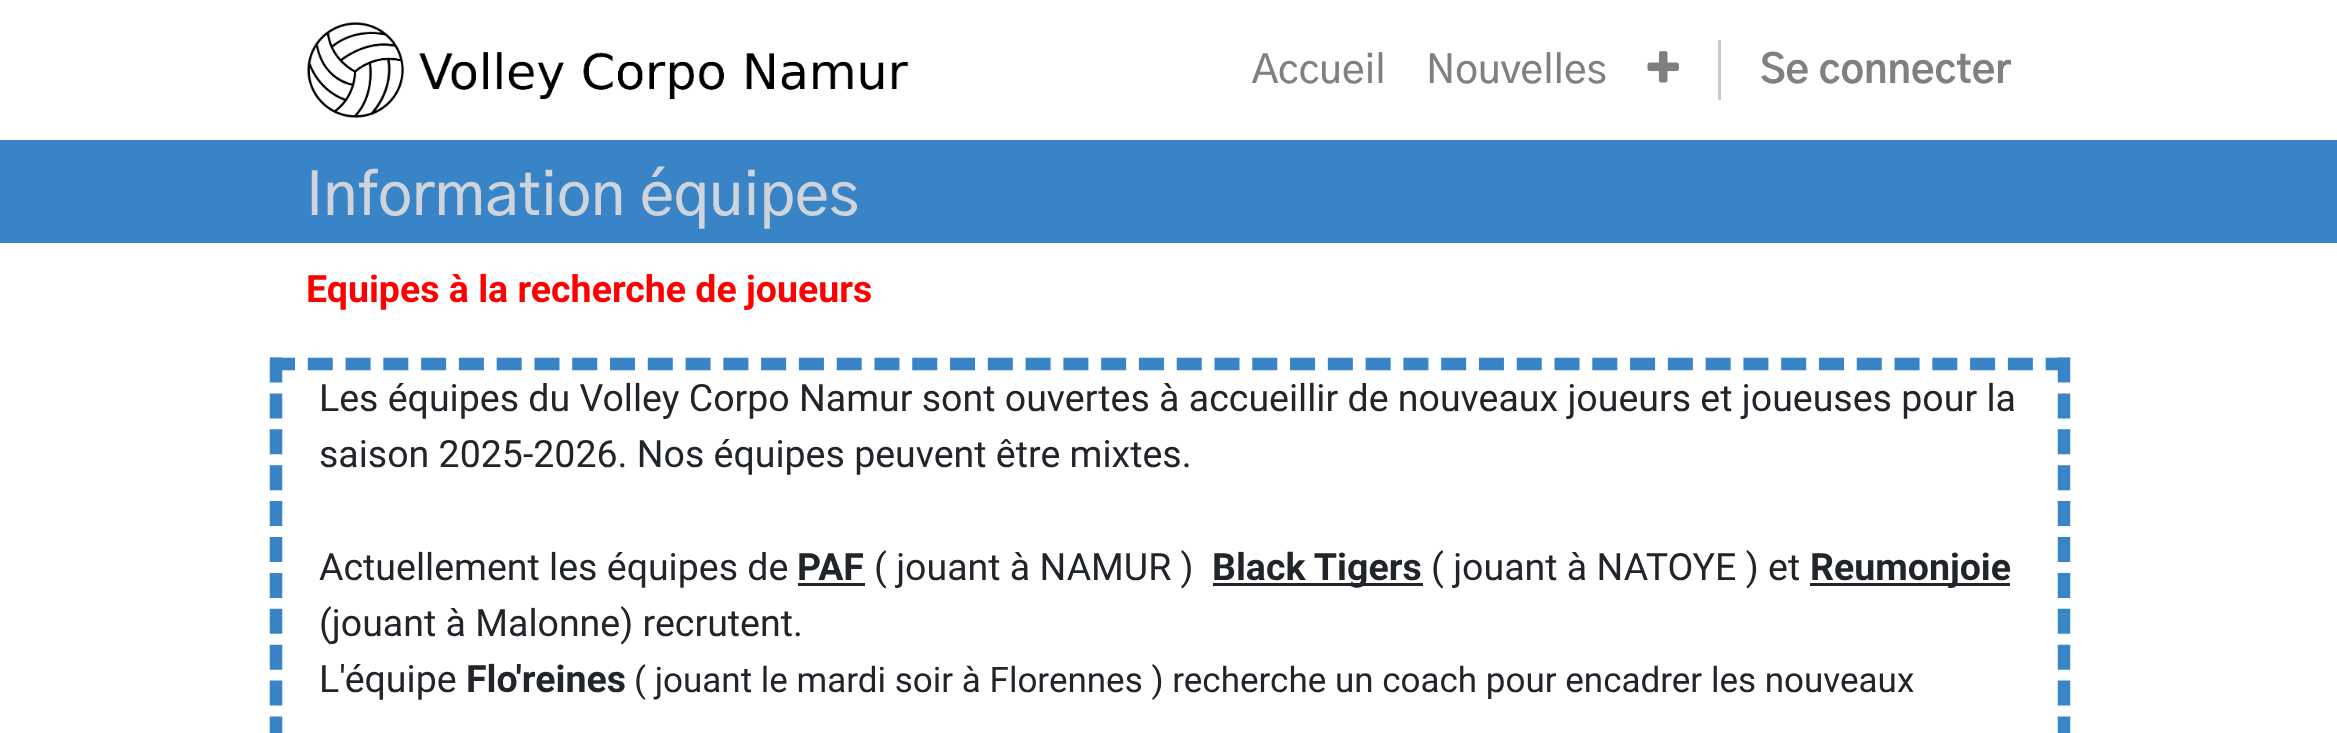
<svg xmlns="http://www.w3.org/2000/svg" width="2337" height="733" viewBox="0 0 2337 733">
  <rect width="100%" height="100%" fill="#ffffff"/>
  <image x="307" y="22" width="602" height="96" href="img1.png"/>
  <text x="1252" y="83" font-family="'Gothic A1'" font-size="40" font-weight="500" fill="#808080">Accueil</text>
  <text x="1426" y="83" font-family="'Gothic A1'" font-size="40" font-weight="500" fill="#808080">Nouvelles</text>
  <image x="1647" y="51" width="32" height="32" href="img2.png"/>
  <rect x="1718" y="40" width="3" height="60" fill="#c8c9ca"/>
  <text x="1760" y="83" font-family="'Gothic A1'" font-size="40" font-weight="bold" fill="#808080">Se connecter</text>
  <rect x="0" y="140" width="2337" height="103" fill="#3984c6"/>
  <text x="306" y="215" font-family="'Gothic A1'" font-size="60" font-weight="500" fill="#ced4da">Information équipes</text>
  <text x="306" y="302" font-family="Roboto" font-size="37.5" font-weight="bold" fill="#ff0000">Equipes à la recherche de joueurs</text>
  <path d="M270 364H2070" fill="none" stroke="#3984c6" stroke-width="12.5" stroke-dasharray="25 12.78"/>
  <path d="M2064 357.5V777.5" fill="none" stroke="#3984c6" stroke-width="12.5" stroke-dasharray="25 10.9"/>
  <path d="M276 357.5V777.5" fill="none" stroke="#3984c6" stroke-width="12.5" stroke-dasharray="25 10.9"/>
  <text x="319" y="411" font-family="Roboto" font-size="37.5" fill="#212529">Les équipes du Volley Corpo Namur sont ouvertes à accueillir de nouveaux joueurs et joueuses pour la</text>
  <text x="319" y="467" font-family="Roboto" font-size="37.5" fill="#212529">saison 2025-2026. Nos équipes peuvent être mixtes.</text>
  <text x="319" y="580" font-family="Roboto" font-size="37.5" fill="#212529">Actuellement les équipes de</text>
  <text x="797" y="580" font-family="Roboto" font-size="37.5" font-weight="bold" fill="#212529">PAF</text>
  <rect x="798" y="583" width="67" height="3" fill="#212529"/>
  <text x="874" y="580" font-family="Roboto" font-size="37.5" fill="#212529">( jouant à NAMUR )</text>
  <rect x="1213" y="583" width="210" height="3" fill="#212529"/>
  <text x="1212" y="580" font-family="Roboto" font-size="37.5" font-weight="bold" fill="#212529">Black Tigers</text>
  <text x="1431" y="580" font-family="Roboto" font-size="37.5" fill="#212529">( jouant à NATOYE ) et</text>
  <rect x="1810" y="583" width="200" height="3" fill="#212529"/>
  <text x="1810" y="580" font-family="Roboto" font-size="37.5" font-weight="bold" fill="#212529">Reumonjoie</text>
  <text x="319" y="636" font-family="Roboto" font-size="37.5" fill="#212529">(jouant à Malonne) recrutent.</text>
  <text x="319" y="692" font-family="Roboto" font-size="37.5" fill="#212529">L'équipe</text>
  <text x="466" y="692" font-family="Roboto" font-size="37.5" font-weight="bold" fill="#212529">Flo'reines</text>
  <text x="634" y="692" font-family="Roboto" font-size="35" fill="#212529">( jouant le mardi soir à Florennes ) recherche un coach pour encadrer les nouveaux</text>
</svg>
